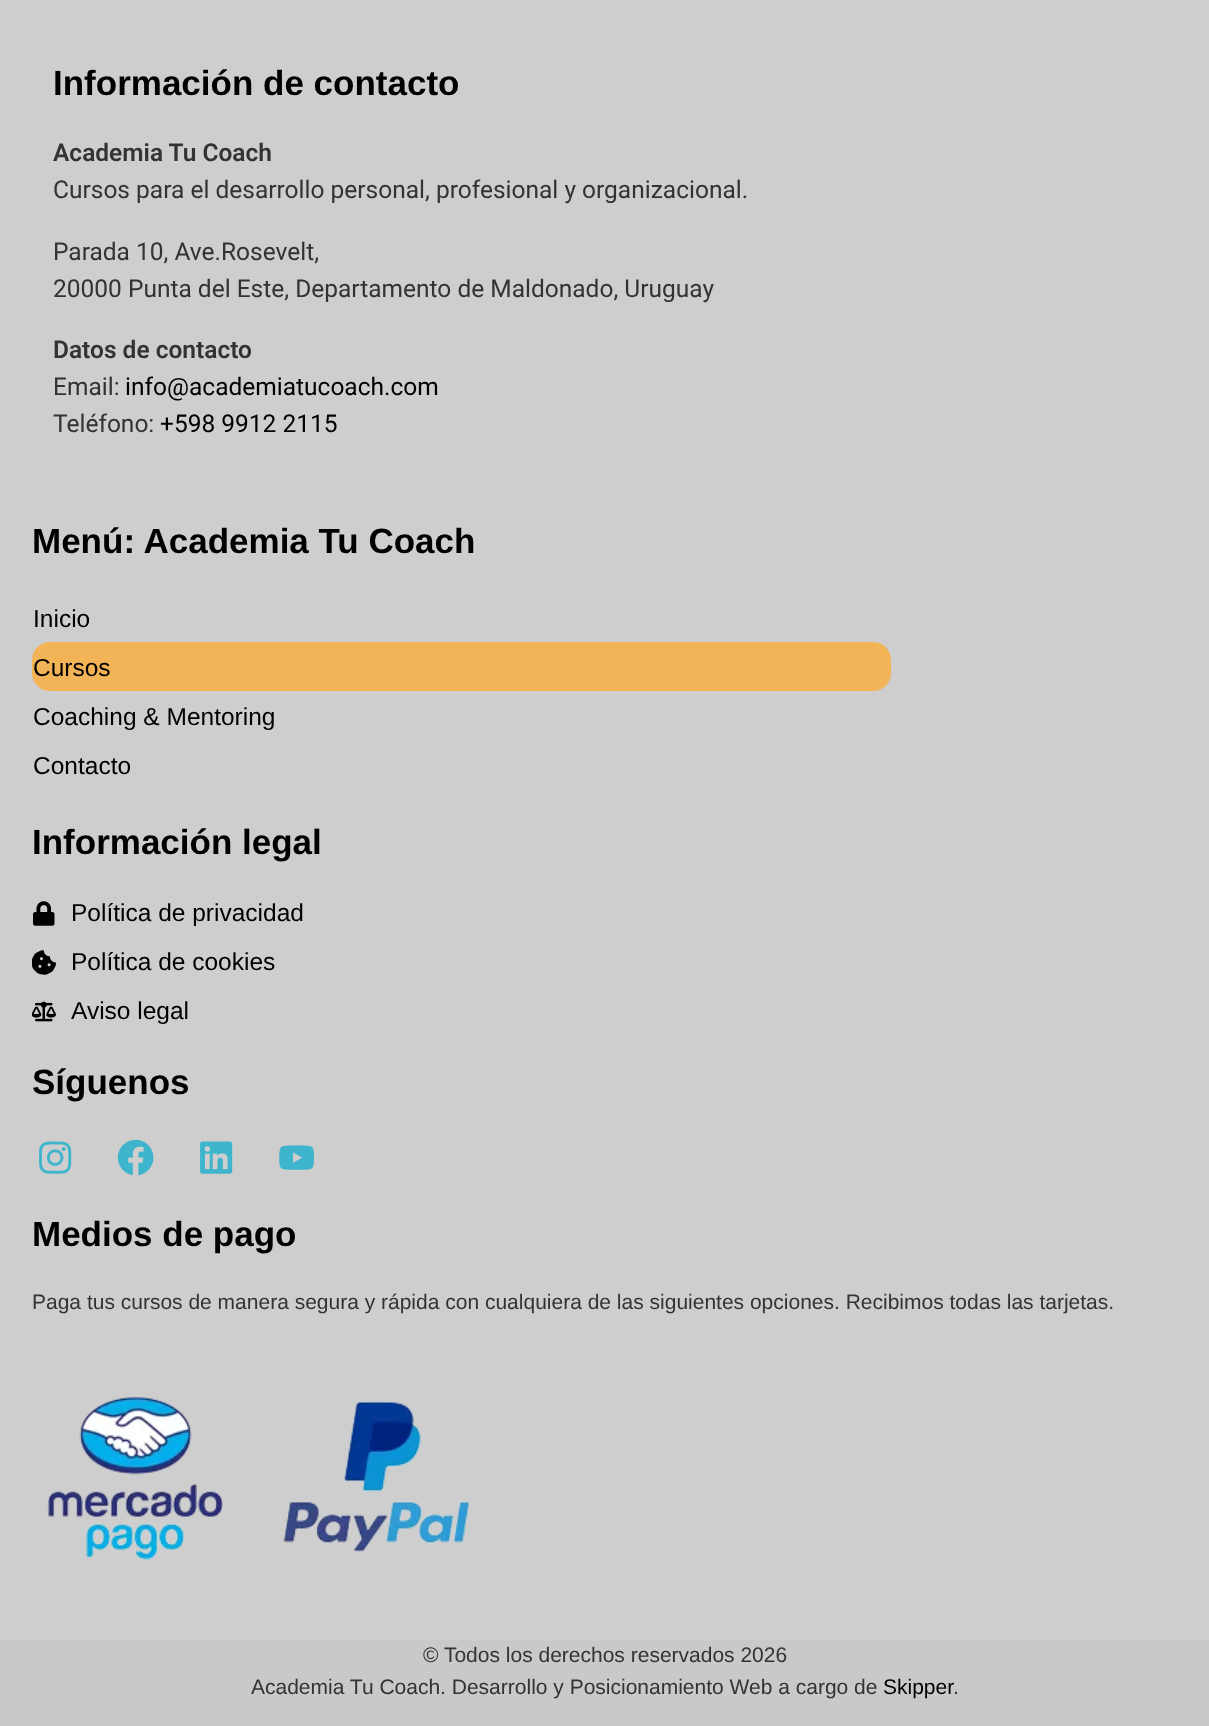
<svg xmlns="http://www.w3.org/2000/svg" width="1209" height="1726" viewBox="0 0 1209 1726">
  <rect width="100%" height="100%" fill="#cecece"/>
  <text x="53" y="95" font-family="Liberation Sans" font-size="35" font-weight="bold" fill="#000000">Información de contacto</text>
  <text x="53" y="161" font-family="Roboto" font-size="24.5" font-weight="600" fill="#333333">Academia Tu Coach</text>
  <text x="53" y="198" font-family="Roboto" font-size="24.5" fill="#333333">Cursos para el desarrollo personal, profesional y organizacional.</text>
  <text x="53" y="260" font-family="Roboto" font-size="24.5" fill="#333333">Parada 10, Ave.Rosevelt,</text>
  <text x="53" y="297" font-family="Roboto" font-size="24.5" fill="#333333">20000 Punta del Este, Departamento de Maldonado, Uruguay</text>
  <text x="53" y="358" font-family="Roboto" font-size="24.5" font-weight="600" fill="#333333">Datos de contacto</text>
  <text x="53" y="395" font-family="Roboto" font-size="24.5" fill="#333333">Email:</text>
  <text x="125" y="395" font-family="Roboto" font-size="24.5" fill="#000000">info@academiatucoach.com</text>
  <text x="53" y="432" font-family="Roboto" font-size="24.5" fill="#333333">Teléfono:</text>
  <text x="160" y="432" font-family="Roboto" font-size="24.5" fill="#000000">+598 9912 2115</text>
  <text x="32" y="553" font-family="Liberation Sans" font-size="35" font-weight="bold" fill="#000000">Menú: Academia Tu Coach</text>
  <text x="33" y="627" font-family="Liberation Sans" font-size="24.5" fill="#000000">Inicio</text>
  <rect x="32" y="642" width="859" height="49" rx="18" fill="#f3b357"/>
  <text x="33" y="676" font-family="Liberation Sans" font-size="24.5" fill="#000000">Cursos</text>
  <text x="33" y="725" font-family="Liberation Sans" font-size="24.5" fill="#000000">Coaching &amp; Mentoring</text>
  <text x="33" y="774" font-family="Liberation Sans" font-size="24.5" fill="#000000">Contacto</text>
  <text x="32" y="854" font-family="Liberation Sans" font-size="35" font-weight="bold" fill="#000000">Información legal</text>
  <image x="33" y="901" width="22" height="25" href="img1.png"/>
  <text x="71" y="921" font-family="Liberation Sans" font-size="24.5" fill="#000000">Política de privacidad</text>
  <image x="32" y="950" width="24" height="25" href="img2.png"/>
  <text x="71" y="970" font-family="Liberation Sans" font-size="24.5" fill="#000000">Política de cookies</text>
  <image x="32" y="1001" width="24" height="21" href="img3.png"/>
  <text x="71" y="1019" font-family="Liberation Sans" font-size="24.5" fill="#000000">Aviso legal</text>
  <text x="32" y="1094" font-family="Liberation Sans" font-size="35" font-weight="bold" fill="#000000">Síguenos</text>
  <image x="39" y="1141" width="33" height="33" href="img4.png"/>
  <image x="117" y="1139" width="37" height="37" href="img5.png"/>
  <image x="200" y="1141" width="33" height="33" href="img6.png"/>
  <image x="279" y="1145" width="36" height="25" href="img7.png"/>
  <text x="32" y="1246" font-family="Liberation Sans" font-size="35" font-weight="bold" fill="#000000">Medios de pago</text>
  <text x="32" y="1309" font-family="Liberation Sans" font-size="21" fill="#333333">Paga tus cursos de manera segura y rápida con cualquiera de las siguientes opciones. Recibimos todas las tarjetas.</text>
  <image x="47" y="1397" width="176" height="163" href="img8.png"/>
  <image x="283" y="1401" width="187" height="151" href="img9.png"/>
  <rect x="0" y="1640" width="1209" height="86" fill="#c9c9c9"/>
  <text x="423" y="1662" font-family="Liberation Sans" font-size="21" fill="#333333">© Todos los derechos reservados 2026</text>
  <text x="251" y="1694" font-family="Liberation Sans" font-size="21" fill="#333333">Academia Tu Coach. Desarrollo y Posicionamiento Web a cargo de</text>
  <text x="883" y="1694" font-family="Liberation Sans" font-size="21" fill="#000000">Skipper</text>
  <text x="953" y="1694" font-family="Liberation Sans" font-size="21" fill="#333333">.</text>
</svg>
